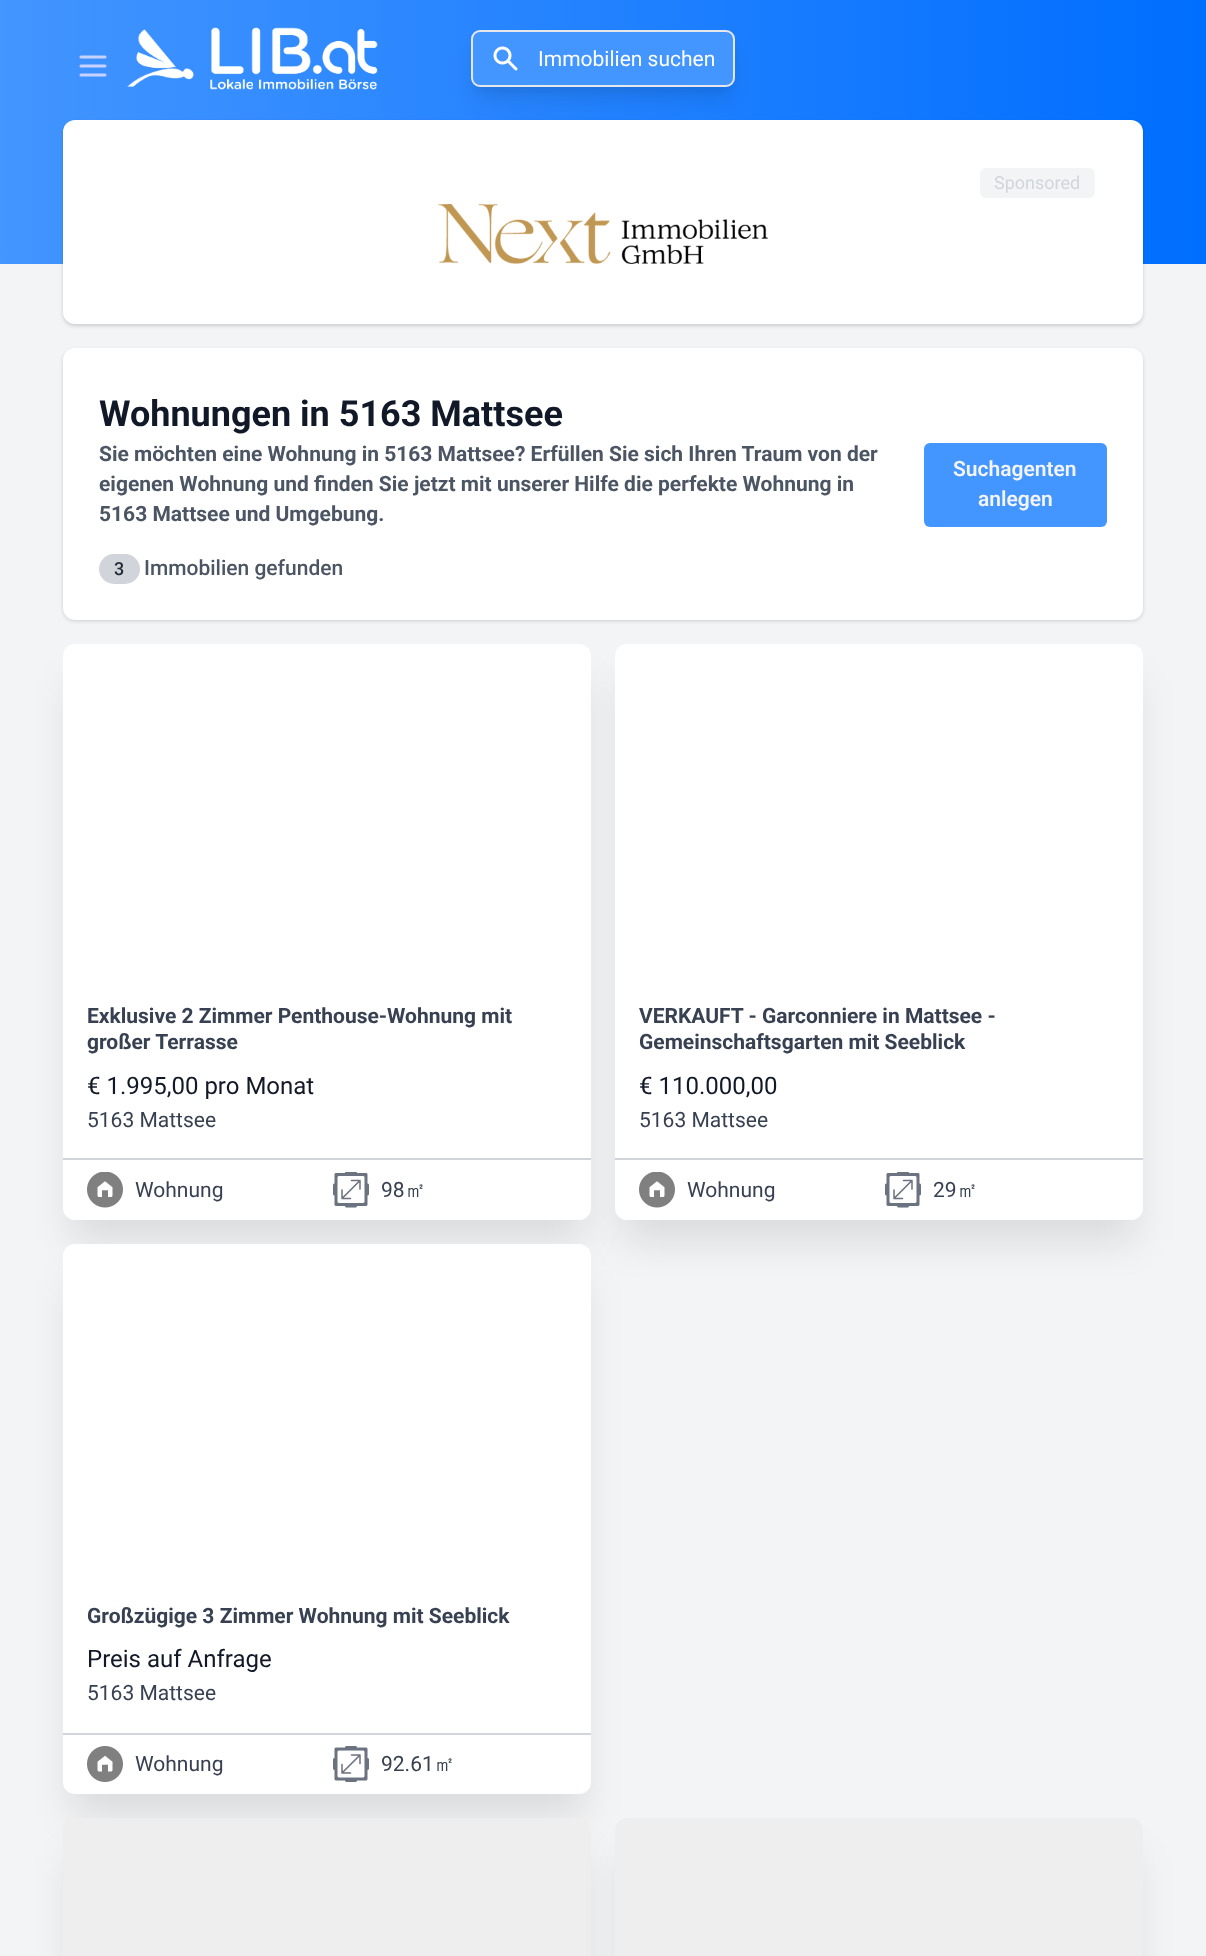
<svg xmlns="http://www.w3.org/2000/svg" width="1206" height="1956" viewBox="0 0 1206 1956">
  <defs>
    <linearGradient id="g1" gradientUnits="userSpaceOnUse" x1="0" y1="132" x2="1206" y2="132"><stop offset="0" stop-color="#4395ff"/><stop offset="1" stop-color="#006eff"/></linearGradient>
    <filter id="blur1" x="-50%" y="-200%" width="200%" height="500%"><feGaussianBlur stdDeviation="4.5"/></filter>
    <filter id="blur2" x="-50%" y="-200%" width="200%" height="500%"><feGaussianBlur stdDeviation="1.5"/></filter>
    <filter id="blur3" x="-50%" y="-200%" width="200%" height="500%"><feGaussianBlur stdDeviation="2"/></filter>
    <filter id="blur4" x="-50%" y="-200%" width="200%" height="500%"><feGaussianBlur stdDeviation="11"/></filter>
    <filter id="blur5" x="-50%" y="-200%" width="200%" height="500%"><feGaussianBlur stdDeviation="19"/></filter>
    <linearGradient id="g2" gradientUnits="userSpaceOnUse" x1="-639" y1="1896" x2="765" y2="1896"><stop offset="0.08" stop-color="#eeeeee"/><stop offset="0.18" stop-color="#dddddd"/><stop offset="0.33" stop-color="#eeeeee"/></linearGradient>
    <linearGradient id="g3" gradientUnits="userSpaceOnUse" x1="-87" y1="1896" x2="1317" y2="1896"><stop offset="0.08" stop-color="#eeeeee"/><stop offset="0.18" stop-color="#dddddd"/><stop offset="0.33" stop-color="#eeeeee"/></linearGradient>
  </defs>
  <rect width="100%" height="100%" fill="#f3f4f6"/>
  <rect x="0" y="0" width="1206" height="264" fill="url(#g1)"/>
  <path d="M81 57H105M81 66H105M81 75H105" fill="none" stroke="#c7d2fe" stroke-width="3" stroke-linecap="round" stroke-linejoin="round"/>
  <image x="127" y="27" width="251" height="63" href="img1.png"/>
  <rect x="474" y="39" width="258" height="51" rx="6" fill="#000000" fill-opacity="0.05" filter="url(#blur1)"/>
  <rect x="63" y="122" width="1080" height="204" rx="12" fill="#000000" fill-opacity="0.06" filter="url(#blur2)"/>
  <rect x="63" y="122" width="1080" height="204" rx="12" fill="#000000" fill-opacity="0.1" filter="url(#blur3)"/>
  <rect x="63" y="120" width="1080" height="204" rx="12" fill="#ffffff"/>
  <rect x="476" y="50" width="255" height="48" rx="5" fill="#000000" fill-opacity="0.1" filter="url(#blur4)"/>
  <rect x="472" y="31" width="262" height="55" rx="8" fill="#4395ff" stroke="#e5e7eb" stroke-width="2"/>
  <image x="493" y="46" width="25" height="25" href="img2.png"/>
  <text x="538" y="66" font-family="Roboto" font-size="21" fill="#ffffff">Immobilien suchen</text>
  <rect x="980" y="168" width="115" height="30" rx="6" fill="#f3f4f6"/>
  <text x="994" y="189" font-family="Roboto" font-size="18" fill="#d1d5db">Sponsored</text>
  <image x="438" y="204" width="330" height="60" href="img3.png"/>
  <rect x="63" y="350" width="1080" height="271" rx="12" fill="#000000" fill-opacity="0.06" filter="url(#blur2)"/>
  <rect x="63" y="350" width="1080" height="271" rx="12" fill="#000000" fill-opacity="0.1" filter="url(#blur3)"/>
  <rect x="63" y="348" width="1080" height="272" rx="12" fill="#ffffff"/>
  <text x="99" y="426" font-family="Roboto" font-size="36" font-weight="bold" fill="#111827">Wohnungen in 5163 Mattsee</text>
  <text x="99" y="461" font-family="Roboto" font-size="21" font-weight="bold" fill="#4b5563">Sie möchten eine Wohnung in 5163 Mattsee? Erfüllen Sie sich Ihren Traum von der</text>
  <text x="99" y="491" font-family="Roboto" font-size="21" font-weight="bold" fill="#4b5563">eigenen Wohnung und finden Sie jetzt mit unserer Hilfe die perfekte Wohnung in</text>
  <text x="99" y="521" font-family="Roboto" font-size="21" font-weight="bold" fill="#4b5563">5163 Mattsee und Umgebung.</text>
  <rect x="99" y="554" width="41" height="30" rx="15" fill="#d1d5db"/>
  <text x="114" y="575" font-family="Roboto" font-size="18" font-weight="500" fill="#1f2937">3</text>
  <text x="144" y="575" font-family="Roboto" font-size="21" font-weight="500" fill="#4b5563">Immobilien gefunden</text>
  <rect x="924" y="443" width="183" height="84" rx="6" fill="#4395ff"/>
  <text x="953" y="476" font-family="Roboto" font-size="21" font-weight="600" fill="#f3f4f6">Suchagenten</text>
  <text x="978" y="506" font-family="Roboto" font-size="21" font-weight="600" fill="#f3f4f6">anlegen</text>
  <rect x="71" y="681" width="513" height="561" rx="5" fill="#000000" fill-opacity="0.1" filter="url(#blur5)"/>
  <rect x="63" y="644" width="528" height="576" rx="12" fill="#ffffff"/>
  <text x="87" y="1023" font-family="Roboto" font-size="21" font-weight="bold" fill="#374151">Exklusive 2 Zimmer Penthouse-Wohnung mit</text>
  <text x="87" y="1049" font-family="Roboto" font-size="21" font-weight="bold" fill="#374151">großer Terrasse</text>
  <text x="87" y="1094" font-family="Roboto" font-size="24" fill="#111827">€ 1.995,00 pro Monat</text>
  <text x="87" y="1127" font-family="Roboto" font-size="21" fill="#374151">5163 Mattsee</text>
  <rect x="63" y="1158" width="528" height="2" fill="#d1d5db"/>
  <image x="87" y="1172" width="36" height="36" href="img4.png"/>
  <text x="135" y="1197" font-family="Roboto" font-size="21" fill="#374151">Wohnung</text>
  <image x="333" y="1172" width="36" height="36" href="img5.png"/>
  <text x="381" y="1197" font-family="Roboto" font-size="21" fill="#374151">98</text>
  <text x="405" y="1197" font-family="WenQuanYi Zen Hei" font-size="21" font-weight="500" fill="#374151">㎡</text>
  <rect x="623" y="681" width="513" height="561" rx="5" fill="#000000" fill-opacity="0.1" filter="url(#blur5)"/>
  <rect x="615" y="644" width="528" height="576" rx="12" fill="#ffffff"/>
  <text x="639" y="1023" font-family="Roboto" font-size="21" font-weight="bold" fill="#374151">VERKAUFT - Garconniere in Mattsee -</text>
  <text x="639" y="1049" font-family="Roboto" font-size="21" font-weight="bold" fill="#374151">Gemeinschaftsgarten mit Seeblick</text>
  <text x="639" y="1094" font-family="Roboto" font-size="24" fill="#111827">€ 110.000,00</text>
  <text x="639" y="1127" font-family="Roboto" font-size="21" fill="#374151">5163 Mattsee</text>
  <rect x="615" y="1158" width="528" height="2" fill="#d1d5db"/>
  <image x="639" y="1172" width="36" height="36" href="img4.png"/>
  <text x="687" y="1197" font-family="Roboto" font-size="21" fill="#374151">Wohnung</text>
  <image x="885" y="1172" width="36" height="36" href="img5.png"/>
  <text x="933" y="1197" font-family="Roboto" font-size="21" fill="#374151">29</text>
  <text x="957" y="1197" font-family="WenQuanYi Zen Hei" font-size="21" font-weight="500" fill="#374151">㎡</text>
  <rect x="71" y="1281" width="513" height="536" rx="5" fill="#000000" fill-opacity="0.1" filter="url(#blur5)"/>
  <rect x="63" y="1244" width="528" height="550" rx="12" fill="#ffffff"/>
  <text x="87" y="1623" font-family="Roboto" font-size="21" font-weight="bold" fill="#374151">Großzügige 3 Zimmer Wohnung mit Seeblick</text>
  <text x="87" y="1667" font-family="Roboto" font-size="24" fill="#111827">Preis auf Anfrage</text>
  <text x="87" y="1700" font-family="Roboto" font-size="21" fill="#374151">5163 Mattsee</text>
  <rect x="63" y="1733" width="528" height="2" fill="#d1d5db"/>
  <image x="87" y="1746" width="36" height="36" href="img6.png"/>
  <text x="135" y="1771" font-family="Roboto" font-size="21" fill="#374151">Wohnung</text>
  <image x="333" y="1746" width="36" height="36" href="img7.png"/>
  <text x="381" y="1771" font-family="Roboto" font-size="21" fill="#374151">92.61</text>
  <text x="434" y="1771" font-family="WenQuanYi Zen Hei" font-size="21" font-weight="500" fill="#374151">㎡</text>
  <rect x="71" y="1856" width="513" height="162" rx="5" fill="#000000" fill-opacity="0.1" filter="url(#blur5)"/>
  <rect x="63" y="1818" width="528" height="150" rx="12" fill="url(#g2)"/>
  <rect x="623" y="1856" width="513" height="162" rx="5" fill="#000000" fill-opacity="0.1" filter="url(#blur5)"/>
  <rect x="615" y="1818" width="528" height="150" rx="12" fill="url(#g3)"/>
</svg>
